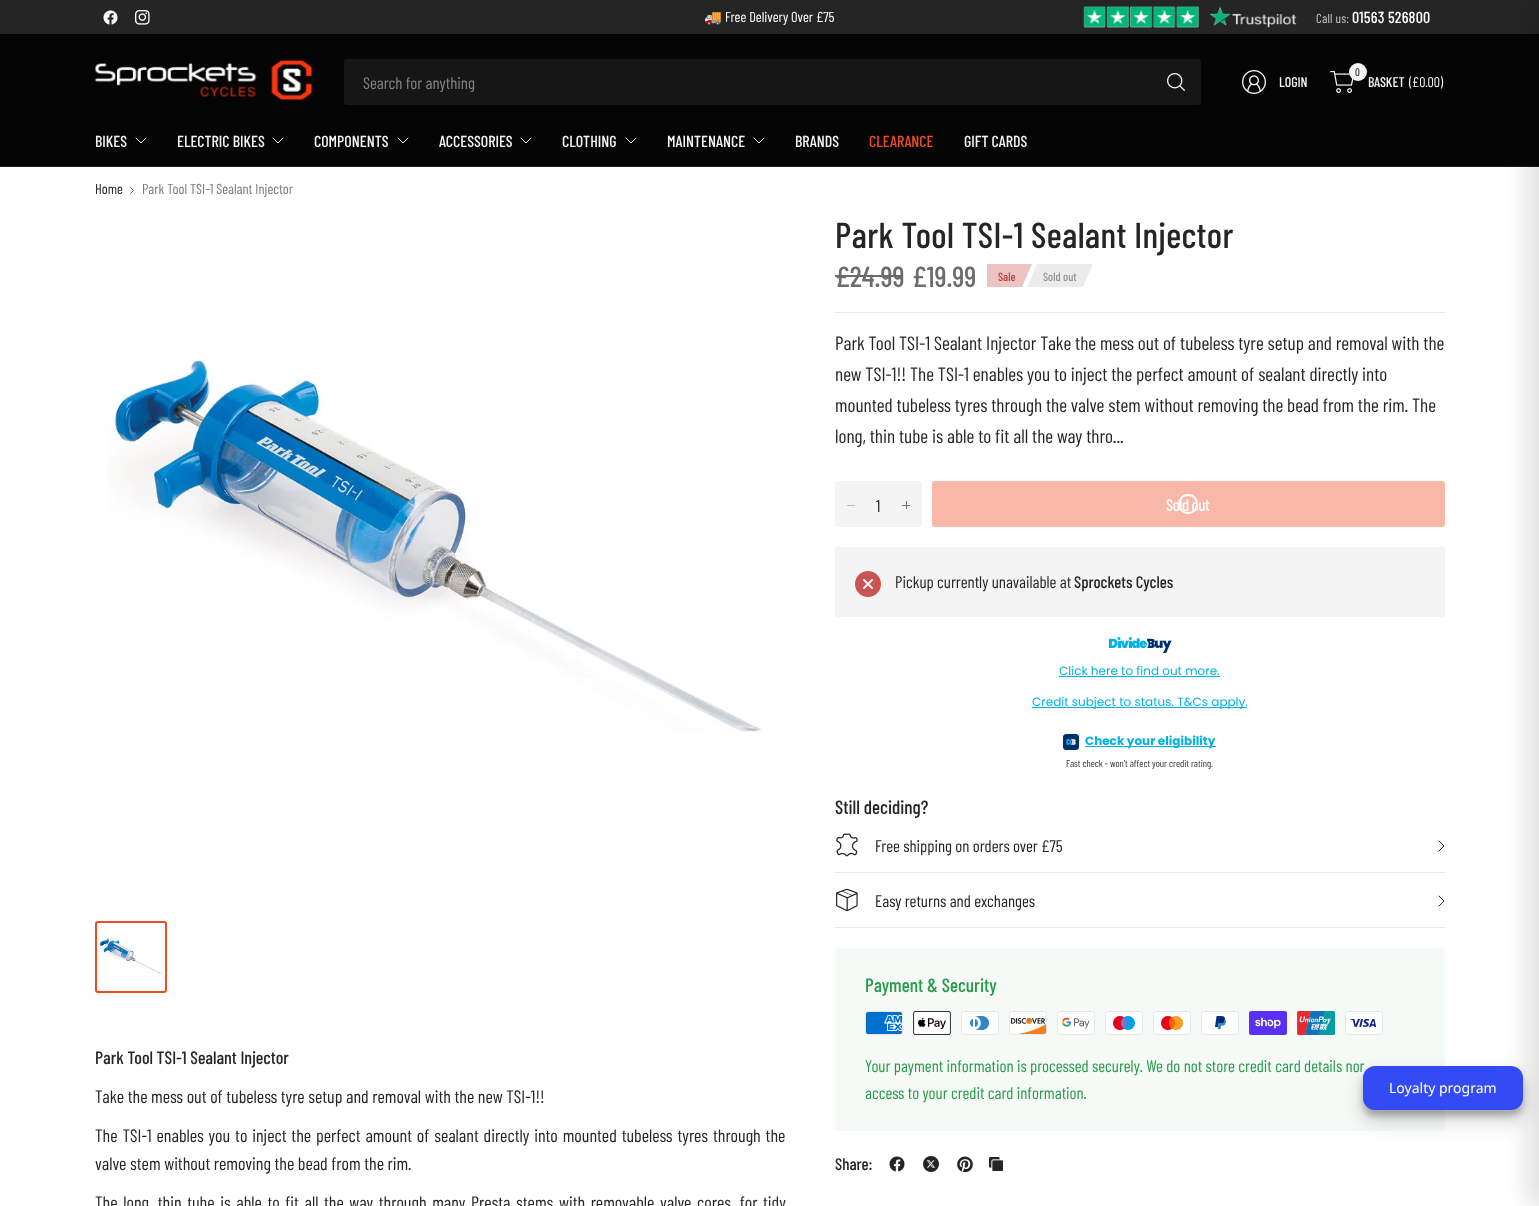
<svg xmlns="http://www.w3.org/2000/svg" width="1539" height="1206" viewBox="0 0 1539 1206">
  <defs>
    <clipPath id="clip1"><rect x="363" y="72" width="771" height="20"/></clipPath>
    <filter id="blur1" x="-50%" y="-200%" width="200%" height="500%"><feGaussianBlur stdDeviation="3"/></filter>
    <filter id="blur2" x="-50%" y="-200%" width="200%" height="500%"><feGaussianBlur stdDeviation="10"/></filter>
    <filter id="blur3" x="-50%" y="-200%" width="200%" height="500%"><feGaussianBlur stdDeviation="12"/></filter>
  </defs>
  <rect width="100%" height="100%" fill="#ffffff"/>
  <rect x="0" y="0" width="1539" height="34" fill="#252525"/>
  <image x="103" y="10" width="15" height="15" href="img1.png"/>
  <image x="135" y="10" width="15" height="15" href="img2.png"/>
  <text x="704" y="22" font-family="Noto Color Emoji" font-size="14.4" fill="#ffffff">🚚</text>
  <text x="725" y="22" font-family="Barlow Condensed" font-size="14.4" fill="#ffffff">Free Delivery Over £75</text>
  <image x="1083" y="6" width="214" height="22" href="img3.png"/>
  <text x="1316" y="23" font-family="Barlow Condensed" font-size="13" letter-spacing="0.2" fill="#cacaca">Call us:</text>
  <text x="1352" y="23" font-family="Barlow Condensed" font-size="16" font-weight="500" letter-spacing="0.2" fill="#ffffff">01563 526800</text>
  <rect x="0" y="34" width="1539" height="132" fill="#050505"/>
  <image x="94" y="60" width="219" height="40" href="img4.png"/>
  <rect x="344" y="59" width="857" height="46" rx="3" fill="#161616"/>
  <g clip-path="url(#clip1)">
    <text x="363" y="89" font-family="Barlow Condensed" font-size="16.8" fill="#858585">Search for anything</text>
  </g>
  <image x="1167" y="73" width="18" height="18" href="img5.png"/>
  <image x="1242" y="70" width="24" height="24" href="img6.png"/>
  <text x="1279" y="87" font-family="Barlow Condensed" font-size="14" font-weight="500" fill="#f4f4f4">LOGIN</text>
  <image x="1330" y="71" width="24" height="22" href="img7.png"/>
  <circle cx="1358" cy="72" r="9" fill="#f4f4f4"/>
  <text x="1355" y="76" font-family="Barlow Condensed" font-size="11" fill="#050505">0</text>
  <text x="1368" y="87" font-family="Barlow Condensed" font-size="14" font-weight="500" fill="#f4f4f4">BASKET</text>
  <text x="1409" y="87" font-family="Barlow Condensed" font-size="14" fill="#f4f4f4">(£0.00)</text>
  <text x="95" y="147" font-family="Barlow Condensed" font-size="16" font-weight="500" fill="#f4f4f4">BIKES</text>
  <path d="M146 138L141 143L136 138" fill="none" stroke="#f4f4f4" stroke-linecap="round" stroke-linejoin="round"/>
  <text x="177" y="147" font-family="Barlow Condensed" font-size="16" font-weight="500" fill="#f4f4f4">ELECTRIC BIKES</text>
  <path d="M283 138L278 143L273 138" fill="none" stroke="#f4f4f4" stroke-linecap="round" stroke-linejoin="round"/>
  <text x="314" y="147" font-family="Barlow Condensed" font-size="16" font-weight="500" fill="#f4f4f4">COMPONENTS</text>
  <path d="M408 138L403 143L398 138" fill="none" stroke="#f4f4f4" stroke-linecap="round" stroke-linejoin="round"/>
  <text x="439" y="147" font-family="Barlow Condensed" font-size="16" font-weight="500" fill="#f4f4f4">ACCESSORIES</text>
  <path d="M531 138L526 143L521 138" fill="none" stroke="#f4f4f4" stroke-linecap="round" stroke-linejoin="round"/>
  <text x="562" y="147" font-family="Barlow Condensed" font-size="16" font-weight="500" fill="#f4f4f4">CLOTHING</text>
  <path d="M636 138L631 143L626 138" fill="none" stroke="#f4f4f4" stroke-linecap="round" stroke-linejoin="round"/>
  <text x="667" y="147" font-family="Barlow Condensed" font-size="16" font-weight="500" fill="#f4f4f4">MAINTENANCE</text>
  <path d="M764 138L759 143L754 138" fill="none" stroke="#f4f4f4" stroke-linecap="round" stroke-linejoin="round"/>
  <text x="795" y="147" font-family="Barlow Condensed" font-size="16" font-weight="500" fill="#f4f4f4">BRANDS</text>
  <text x="869" y="147" font-family="Barlow Condensed" font-size="16" font-weight="500" fill="#f04c24">CLEARANCE</text>
  <text x="964" y="147" font-family="Barlow Condensed" font-size="16" font-weight="500" fill="#f4f4f4">GIFT CARDS</text>
  <rect x="0" y="166" width="1539" height="1" fill="#1d1d1d"/>
  <text x="95" y="194" font-family="Barlow Condensed" font-size="14.4" fill="#252525">Home</text>
  <path d="M130.5 187.5L133.5 190.5L130.5 193.5" fill="none" stroke="#252525" stroke-width="0.7" stroke-linecap="round" stroke-linejoin="round"/>
  <text x="142" y="194" font-family="Barlow Condensed" font-size="14.4" fill="#7c7c7c">Park Tool TSI-1 Sealant Injector</text>
  <image x="107" y="360" width="655" height="372" href="img8.png"/>
  <image x="98" y="938" width="64" height="36" href="img9.png"/>
  <rect x="96" y="922" width="70" height="70" rx="2" fill="none" stroke="#f04c24" stroke-width="2"/>
  <rect x="835" y="312" width="610" height="1" fill="#e9e9e9"/>
  <text x="835" y="248" font-family="Barlow Condensed" font-size="36" font-weight="500" letter-spacing="0.35" fill="#252525">Park Tool TSI-1 Sealant Injector</text>
  <text x="835" y="287" font-family="Barlow Condensed" font-size="29" font-weight="500" fill="#6d6d6d">£24.99</text>
  <rect x="835" y="275" width="68" height="2" fill="#6a6a6a"/>
  <text x="912" y="287" font-family="Barlow Condensed" font-size="29" font-weight="500" fill="#6d6d6d">£19.99</text>
  <path d="M987 264H1032L1022 287H987Z" fill="#edc4c4"/>
  <text x="998" y="281" font-family="Barlow Condensed" font-size="12" font-weight="500" fill="#c33c3c">Sale</text>
  <path d="M1037 264H1092V266L1083 287H1027Z" fill="#ececec"/>
  <text x="1043" y="281" font-family="Barlow Condensed" font-size="12" font-weight="500" fill="#939393">Sold out</text>
  <text x="835" y="350" font-family="Barlow Condensed" font-size="19.2" fill="#252525">Park Tool TSI-1 Sealant Injector Take the mess out of tubeless tyre setup and removal with the</text>
  <text x="835" y="381" font-family="Barlow Condensed" font-size="19.2" fill="#252525">new TSI-1!! The TSI-1 enables you to inject the perfect amount of sealant directly into</text>
  <text x="835" y="412" font-family="Barlow Condensed" font-size="19.2" fill="#252525">mounted tubeless tyres through the valve stem without removing the bead from the rim. The</text>
  <text x="835" y="443" font-family="Barlow Condensed" font-size="19.2" fill="#252525">long, thin tube is able to fit all the way thro...</text>
  <rect x="835" y="481" width="87" height="46" rx="3" fill="#f4f4f4"/>
  <rect x="847" y="505" width="8" height="1" fill="#b6b6b6"/>
  <text x="876" y="512" font-family="Barlow Condensed" font-size="16.8" fill="#252525">1</text>
  <rect x="906" y="501" width="1" height="8" fill="#787878"/>
  <rect x="902" y="505" width="8" height="1" fill="#787878"/>
  <rect x="932" y="481" width="513" height="46" rx="3" fill="#f9b7a7"/>
  <path d="M1188 495C1200 495 1200 513 1188 513C1176 513 1176 495 1188 495" fill="none" stroke="#ffffff" stroke-width="1.8"/>
  <text x="1166" y="511" font-family="Barlow Condensed" font-size="16.8" font-weight="500" letter-spacing="-0.5" fill="#ffffff">Sold out</text>
  <rect x="835" y="547" width="610" height="70" rx="3" fill="#f4f4f4"/>
  <image x="855" y="571" width="26" height="26" href="img10.png"/>
  <text x="895" y="588" font-family="Barlow Condensed" font-size="16.8" fill="#252525">Pickup currently unavailable at</text>
  <text x="1074" y="588" font-family="Barlow Condensed" font-size="16.8" font-weight="500" fill="#252525">Sprockets Cycles</text>
  <image x="1109" y="637" width="63" height="16" href="img11.png"/>
  <text x="1059" y="675" font-family="Poppins" font-size="12" fill="#00b3e3">Click here to find out more.</text>
  <rect x="1059" y="676" width="161" height="1" fill="#00b3e3"/>
  <rect x="1032" y="707" width="215" height="1" fill="#00b3e3"/>
  <text x="1032" y="706" font-family="Poppins" font-size="12" fill="#00b3e3">Credit subject to status. T&amp;Cs apply.</text>
  <image x="1063" y="734" width="16" height="16" href="img12.png"/>
  <rect x="1085" y="746" width="131" height="1" fill="#00b3e3"/>
  <text x="1085" y="745" font-family="Poppins" font-size="12" font-weight="bold" fill="#00b3e3">Check your eligibility</text>
  <text x="1066" y="767" font-family="Barlow Condensed" font-size="10" fill="#333333">Fast check - won't affect your credit rating.</text>
  <text x="835" y="814" font-family="Barlow Condensed" font-size="19.2" font-weight="500" fill="#252525">Still deciding?</text>
  <image x="836" y="833" width="22" height="24" href="img13.png"/>
  <text x="875" y="852" font-family="Barlow Condensed" font-size="16.8" fill="#252525">Free shipping on orders over £75</text>
  <path d="M1439 841L1444 846L1439 851" fill="none" stroke="#252525" stroke-linecap="round" stroke-linejoin="round"/>
  <rect x="835" y="872" width="610" height="1" fill="#e9e9e9"/>
  <rect x="835" y="927" width="610" height="1" fill="#e9e9e9"/>
  <image x="836" y="888" width="22" height="24" href="img14.png"/>
  <text x="875" y="907" font-family="Barlow Condensed" font-size="16.8" fill="#252525">Easy returns and exchanges</text>
  <path d="M1439 896L1444 901L1439 906" fill="none" stroke="#252525" stroke-linecap="round" stroke-linejoin="round"/>
  <rect x="835" y="948" width="610" height="183" rx="3" fill="#f5faf6"/>
  <text x="865" y="992" font-family="Barlow Condensed" font-size="19.2" font-weight="500" fill="#279a4b">Payment &amp; Security</text>
  <image x="865" y="1011" width="38" height="24" href="img15.png"/>
  <image x="913" y="1011" width="38" height="24" href="img16.png"/>
  <image x="961" y="1011" width="38" height="24" href="img17.png"/>
  <image x="1009" y="1011" width="38" height="24" href="img18.png"/>
  <image x="1057" y="1011" width="38" height="24" href="img19.png"/>
  <image x="1105" y="1011" width="38" height="24" href="img20.png"/>
  <image x="1153" y="1011" width="38" height="24" href="img21.png"/>
  <image x="1201" y="1011" width="38" height="24" href="img22.png"/>
  <image x="1249" y="1011" width="38" height="24" href="img23.png"/>
  <image x="1297" y="1011" width="38" height="24" href="img24.png"/>
  <image x="1345" y="1011" width="38" height="24" href="img25.png"/>
  <text x="865" y="1072" font-family="Barlow Condensed" font-size="16.8" fill="#279a4b">Your payment information is processed securely. We do not store credit card details nor</text>
  <text x="865" y="1099" font-family="Barlow Condensed" font-size="16.8" fill="#279a4b">access to your credit card information.</text>
  <text x="835" y="1170" font-family="Barlow Condensed" font-size="16.8" font-weight="500" fill="#252525">Share:</text>
  <image x="889" y="1156" width="16" height="16" href="img26.png"/>
  <image x="923" y="1156" width="16" height="16" href="img27.png"/>
  <image x="957" y="1156" width="16" height="16" href="img28.png"/>
  <image x="989" y="1157" width="14" height="14" href="img29.png"/>
  <text x="95" y="1064" font-family="Barlow Condensed" font-size="18" font-weight="500" fill="#252525">Park Tool TSI-1 Sealant Injector</text>
  <text x="95" y="1103" font-family="Barlow Condensed" font-size="18" fill="#252525">Take the mess out of tubeless tyre setup and removal with the new TSI-1!!</text>
  <text x="95" y="1142" word-spacing="1.25" font-family="Barlow Condensed" font-size="18" fill="#252525">The TSI-1 enables you to inject the perfect amount of sealant directly into mounted tubeless tyres through the</text>
  <text x="95" y="1170" font-family="Barlow Condensed" font-size="18" fill="#252525">valve stem without removing the bead from the rim.</text>
  <text x="95" y="1209" word-spacing="2" font-family="Barlow Condensed" font-size="18" fill="#252525">The long, thin tube is able to fit all the way through many Presta stems with removable valve cores, for tidy</text>
  <rect x="1363" y="1072" width="160" height="44" rx="12" fill="#000000" fill-opacity="0.23" filter="url(#blur1)"/>
  <rect x="1363" y="1076" width="160" height="44" rx="12" fill="#000000" fill-opacity="0.19" filter="url(#blur2)"/>
  <rect x="1527" y="0" width="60" height="1206" rx="12" fill="#000000" fill-opacity="0.12" filter="url(#blur3)"/>
  <rect x="1363" y="1066" width="160" height="44" rx="12" fill="#334bf4"/>
  <text x="1389" y="1093" font-family="Noto Sans" font-size="14" fill="#ffffff">Loyalty program</text>
</svg>
